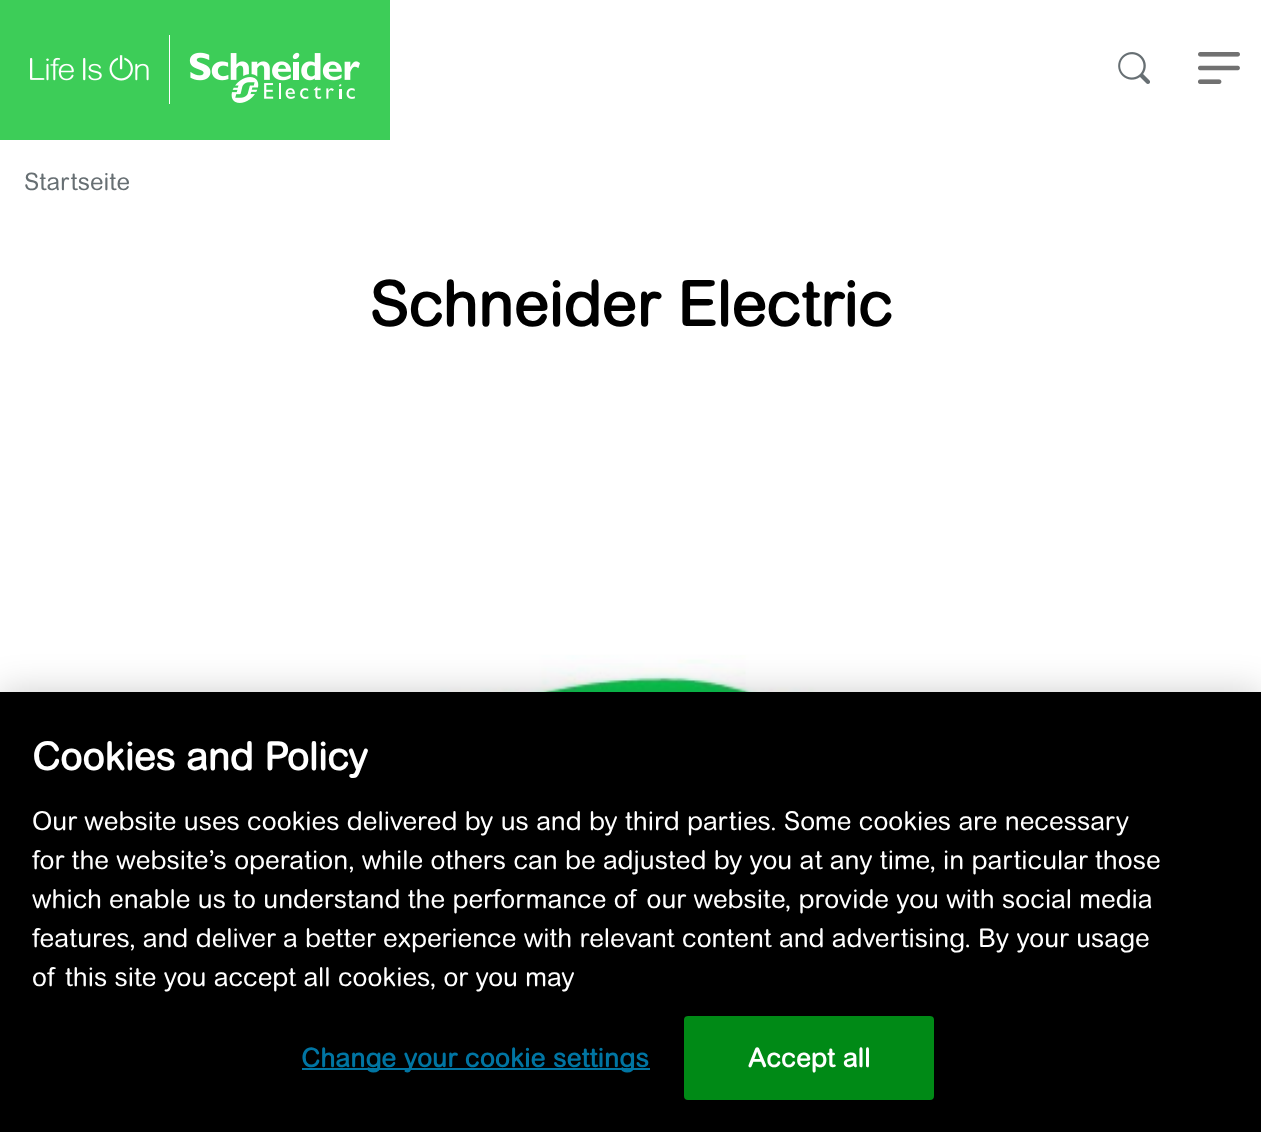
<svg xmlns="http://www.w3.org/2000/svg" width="1261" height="1132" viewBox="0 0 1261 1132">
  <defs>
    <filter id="blur1" x="-50%" y="-200%" width="200%" height="500%"><feGaussianBlur stdDeviation="18"/></filter>
  </defs>
  <rect width="100%" height="100%" fill="#ffffff"/>
  <rect x="0" y="0" width="390" height="140" fill="#3dcd58"/>
  <image x="30" y="35" width="330" height="69" href="img1.png"/>
  <image x="1118" y="52" width="32" height="32" href="img2.png"/>
  <image x="1198" y="52" width="42" height="32" href="img3.png"/>
  <text x="24" y="190" font-family="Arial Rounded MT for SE" font-size="24" fill="#676f73">Startseite</text>
  <text x="369" y="326" font-family="Arial Rounded MT for SE" font-size="62" font-weight="bold" fill="#000000">Schneider Electric</text>
  <image x="373" y="655" width="542" height="37" href="img4.png"/>
  <rect x="0" y="692" width="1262" height="440" fill="#000000" fill-opacity="0.2" filter="url(#blur1)"/>
  <rect x="0" y="692" width="1261" height="440" fill="#000000"/>
  <text x="32" y="770" font-family="Arial Rounded MT for SE" font-size="38.5" font-weight="bold" fill="#ffffff">Cookies and Policy</text>
  <text x="32" y="830" font-family="Arial Rounded MT for SE" font-size="26" fill="#ffffff">Our website uses cookies delivered by us and by third parties. Some cookies are necessary</text>
  <text x="32" y="869" font-family="Arial Rounded MT for SE" font-size="26" fill="#ffffff">for the website’s operation, while others can be adjusted by you at any time, in particular those</text>
  <text x="32" y="908" font-family="Arial Rounded MT for SE" font-size="26" fill="#ffffff">which enable us to understand the performance of our website, provide you with social media</text>
  <text x="32" y="947" font-family="Arial Rounded MT for SE" font-size="26" fill="#ffffff">features, and deliver a better experience with relevant content and advertising. By your usage</text>
  <text x="32" y="986" font-family="Arial Rounded MT for SE" font-size="26" fill="#ffffff">of this site you accept all cookies, or you may</text>
  <rect x="302" y="1068" width="348" height="2" fill="#0075a3"/>
  <text x="301" y="1067" font-family="Arial Rounded MT for SE" font-size="26" font-weight="bold" letter-spacing="0.25" fill="#0075a3">Change your cookie settings</text>
  <rect x="685" y="1017" width="248" height="82" rx="3" fill="#008a16" stroke="#008a16" stroke-width="2"/>
  <text x="748" y="1067" font-family="Arial Rounded MT for SE" font-size="26" font-weight="bold" letter-spacing="0.25" fill="#ffffff">Accept all</text>
</svg>
